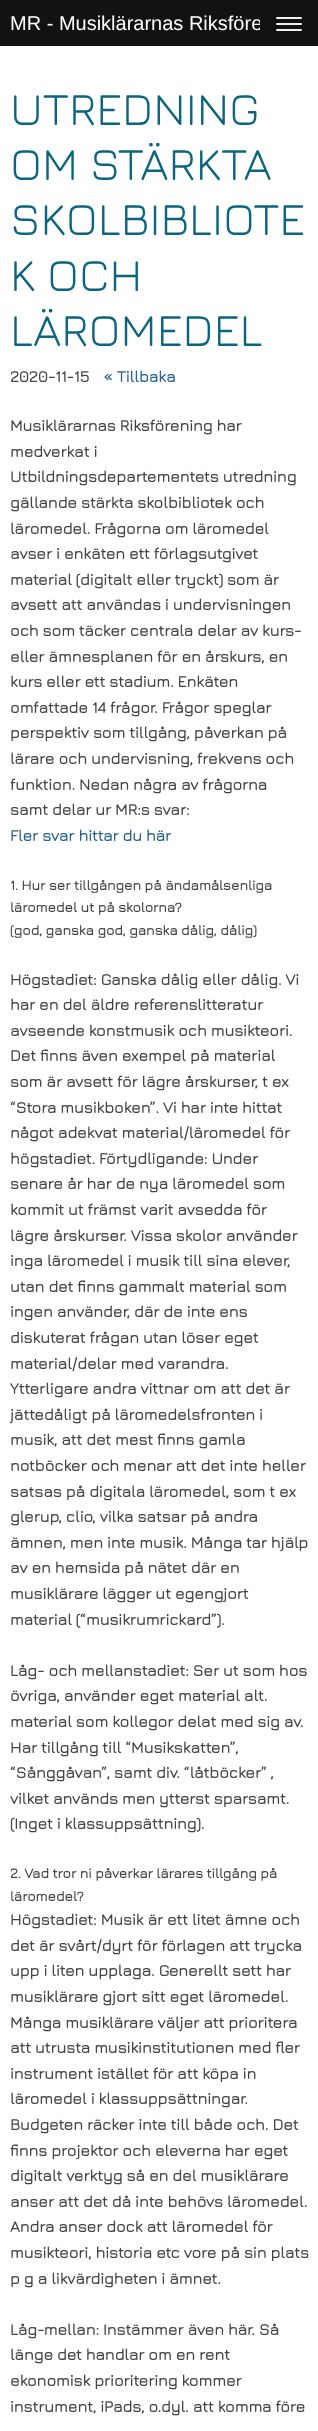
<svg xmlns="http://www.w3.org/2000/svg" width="318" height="2431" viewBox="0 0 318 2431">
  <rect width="100%" height="100%" fill="#ffffff"/>
  <rect x="0" y="0" width="260" height="46" fill="#121212"/>
  <text x="10" y="30" font-family="Liberation Sans" font-size="20" fill="#ffffff">MR - Musiklärarnas Riksföre</text>
  <rect x="260" y="0" width="58" height="46" fill="#121212"/>
  <rect x="276" y="17" width="26" height="2" rx="1" fill="#eeeeee"/>
  <rect x="276" y="23" width="26" height="2" rx="1" fill="#eeeeee"/>
  <rect x="276" y="29" width="26" height="2" rx="1" fill="#eeeeee"/>
  <text x="10" y="125" font-family="Jura" font-size="46" font-weight="300" fill="#0c6580">UTREDNING</text>
  <text x="10" y="180" font-family="Jura" font-size="46" font-weight="300" fill="#0c6580">OM STÄRKTA</text>
  <text x="10" y="235" font-family="Jura" font-size="46" font-weight="300" fill="#0c6580">SKOLBIBLIOTE</text>
  <text x="10" y="291" font-family="Jura" font-size="46" font-weight="300" fill="#0c6580">K OCH</text>
  <text x="10" y="346" font-family="Jura" font-size="46" font-weight="300" fill="#0c6580">LÄROMEDEL</text>
  <text x="10" y="382" font-family="Jura" font-size="16" font-weight="bold" fill="#454545">2020-11-15</text>
  <text x="103" y="382" font-family="Jura" font-size="16" font-weight="bold" fill="#27628f">« Tillbaka</text>
  <text x="10" y="431" font-family="Jura" font-size="16" font-weight="bold" fill="#454545">Musiklärarnas Riksförening har</text>
  <text x="10" y="457" font-family="Jura" font-size="16" font-weight="bold" fill="#454545">medverkat i</text>
  <text x="10" y="482" font-family="Jura" font-size="16" font-weight="bold" fill="#454545">Utbildningsdepartementets utredning</text>
  <text x="10" y="508" font-family="Jura" font-size="16" font-weight="bold" fill="#454545">gällande stärkta skolbibliotek och</text>
  <text x="10" y="534" font-family="Jura" font-size="16" font-weight="bold" fill="#454545">läromedel. Frågorna om läromedel</text>
  <text x="10" y="559" font-family="Jura" font-size="16" font-weight="bold" fill="#454545">avser i enkäten ett förlagsutgivet</text>
  <text x="10" y="585" font-family="Jura" font-size="16" font-weight="bold" fill="#454545">material (digitalt eller tryckt) som är</text>
  <text x="10" y="610" font-family="Jura" font-size="16" font-weight="bold" fill="#454545">avsett att användas i undervisningen</text>
  <text x="10" y="636" font-family="Jura" font-size="16" font-weight="bold" fill="#454545">och som täcker centrala delar av kurs-</text>
  <text x="10" y="662" font-family="Jura" font-size="16" font-weight="bold" fill="#454545">eller ämnesplanen för en årskurs, en</text>
  <text x="10" y="687" font-family="Jura" font-size="16" font-weight="bold" fill="#454545">kurs eller ett stadium. Enkäten</text>
  <text x="10" y="713" font-family="Jura" font-size="16" font-weight="bold" fill="#454545">omfattade 14 frågor. Frågor speglar</text>
  <text x="10" y="738" font-family="Jura" font-size="16" font-weight="bold" fill="#454545">perspektiv som tillgång, påverkan på</text>
  <text x="10" y="764" font-family="Jura" font-size="16" font-weight="bold" fill="#454545">lärare och undervisning, frekvens och</text>
  <text x="10" y="790" font-family="Jura" font-size="16" font-weight="bold" fill="#454545">funktion. Nedan några av frågorna</text>
  <text x="10" y="815" font-family="Jura" font-size="16" font-weight="bold" fill="#454545">samt delar ur MR:s svar:</text>
  <text x="10" y="841" font-family="Jura" font-size="16" font-weight="bold" fill="#27628f">Fler svar hittar du här</text>
  <text x="10" y="890" font-family="Jura" font-size="14" font-weight="bold" fill="#454545">1. Hur ser tillgången på ändamålsenliga</text>
  <text x="10" y="912" font-family="Jura" font-size="14" font-weight="bold" fill="#454545">läromedel ut på skolorna?</text>
  <text x="10" y="935" font-family="Jura" font-size="14" font-weight="bold" fill="#454545">(god, ganska god, ganska dålig, dålig)</text>
  <text x="10" y="985" font-family="Jura" font-size="16" font-weight="bold" fill="#454545">Högstadiet: Ganska dålig eller dålig. Vi</text>
  <text x="10" y="1010" font-family="Jura" font-size="16" font-weight="bold" fill="#454545">har en del äldre referenslitteratur</text>
  <text x="10" y="1036" font-family="Jura" font-size="16" font-weight="bold" fill="#454545">avseende konstmusik och musikteori.</text>
  <text x="10" y="1061" font-family="Jura" font-size="16" font-weight="bold" fill="#454545">Det finns även exempel på material</text>
  <text x="10" y="1087" font-family="Jura" font-size="16" font-weight="bold" fill="#454545">som är avsett för lägre årskurser, t ex</text>
  <text x="10" y="1113" font-family="Jura" font-size="16" font-weight="bold" fill="#454545">“Stora musikboken”. Vi har inte hittat</text>
  <text x="10" y="1138" font-family="Jura" font-size="16" font-weight="bold" fill="#454545">något adekvat material/läromedel för</text>
  <text x="10" y="1164" font-family="Jura" font-size="16" font-weight="bold" fill="#454545">högstadiet. Förtydligande: Under</text>
  <text x="10" y="1189" font-family="Jura" font-size="16" font-weight="bold" fill="#454545">senare år har de nya läromedel som</text>
  <text x="10" y="1215" font-family="Jura" font-size="16" font-weight="bold" fill="#454545">kommit ut främst varit avsedda för</text>
  <text x="10" y="1241" font-family="Jura" font-size="16" font-weight="bold" fill="#454545">lägre årskurser. Vissa skolor använder</text>
  <text x="10" y="1266" font-family="Jura" font-size="16" font-weight="bold" fill="#454545">inga läromedel i musik till sina elever,</text>
  <text x="10" y="1292" font-family="Jura" font-size="16" font-weight="bold" fill="#454545">utan det finns gammalt material som</text>
  <text x="10" y="1317" font-family="Jura" font-size="16" font-weight="bold" fill="#454545">ingen använder, där de inte ens</text>
  <text x="10" y="1343" font-family="Jura" font-size="16" font-weight="bold" fill="#454545">diskuterat frågan utan löser eget</text>
  <text x="10" y="1369" font-family="Jura" font-size="16" font-weight="bold" fill="#454545">material/delar med varandra.</text>
  <text x="10" y="1394" font-family="Jura" font-size="16" font-weight="bold" fill="#454545">Ytterligare andra vittnar om att det är</text>
  <text x="10" y="1420" font-family="Jura" font-size="16" font-weight="bold" fill="#454545">jättedåligt på läromedelsfronten i</text>
  <text x="10" y="1445" font-family="Jura" font-size="16" font-weight="bold" fill="#454545">musik, att det mest finns gamla</text>
  <text x="10" y="1471" font-family="Jura" font-size="16" font-weight="bold" fill="#454545">notböcker och menar att det inte heller</text>
  <text x="10" y="1497" font-family="Jura" font-size="16" font-weight="bold" fill="#454545">satsas på digitala läromedel, som t ex</text>
  <text x="10" y="1522" font-family="Jura" font-size="16" font-weight="bold" fill="#454545">glerup, clio, vilka satsar på andra</text>
  <text x="10" y="1548" font-family="Jura" font-size="16" font-weight="bold" fill="#454545">ämnen, men inte musik. Många tar hjälp</text>
  <text x="10" y="1573" font-family="Jura" font-size="16" font-weight="bold" fill="#454545">av en hemsida på nätet där en</text>
  <text x="10" y="1599" font-family="Jura" font-size="16" font-weight="bold" fill="#454545">musiklärare lägger ut egengjort</text>
  <text x="10" y="1625" font-family="Jura" font-size="16" font-weight="bold" fill="#454545">material (“musikrumrickard”).</text>
  <text x="10" y="1676" font-family="Jura" font-size="16" font-weight="bold" fill="#454545">Låg- och mellanstadiet: Ser ut som hos</text>
  <text x="10" y="1701" font-family="Jura" font-size="16" font-weight="bold" fill="#454545">övriga, använder eget material alt.</text>
  <text x="10" y="1727" font-family="Jura" font-size="16" font-weight="bold" fill="#454545">material som kollegor delat med sig av.</text>
  <text x="10" y="1753" font-family="Jura" font-size="16" font-weight="bold" fill="#454545">Har tillgång till “Musikskatten”,</text>
  <text x="10" y="1778" font-family="Jura" font-size="16" font-weight="bold" fill="#454545">“Sånggåvan”, samt div. “låtböcker” ,</text>
  <text x="10" y="1804" font-family="Jura" font-size="16" font-weight="bold" fill="#454545">vilket används men ytterst sparsamt.</text>
  <text x="10" y="1829" font-family="Jura" font-size="16" font-weight="bold" fill="#454545">(Inget i klassuppsättning).</text>
  <text x="10" y="1878" font-family="Jura" font-size="14" font-weight="bold" fill="#454545">2. Vad tror ni påverkar lärares tillgång på</text>
  <text x="10" y="1901" font-family="Jura" font-size="14" font-weight="bold" fill="#454545">läromedel?</text>
  <text x="10" y="1925" font-family="Jura" font-size="16" font-weight="bold" fill="#454545">Högstadiet: Musik är ett litet ämne och</text>
  <text x="10" y="1951" font-family="Jura" font-size="16" font-weight="bold" fill="#454545">det är svårt/dyrt för förlagen att trycka</text>
  <text x="10" y="1976" font-family="Jura" font-size="16" font-weight="bold" fill="#454545">upp i liten upplaga. Generellt sett har</text>
  <text x="10" y="2002" font-family="Jura" font-size="16" font-weight="bold" fill="#454545">musiklärare gjort sitt eget läromedel.</text>
  <text x="10" y="2028" font-family="Jura" font-size="16" font-weight="bold" fill="#454545">Många musiklärare väljer att prioritera</text>
  <text x="10" y="2053" font-family="Jura" font-size="16" font-weight="bold" fill="#454545">att utrusta musikinstitutionen med fler</text>
  <text x="10" y="2079" font-family="Jura" font-size="16" font-weight="bold" fill="#454545">instrument istället för att köpa in</text>
  <text x="10" y="2104" font-family="Jura" font-size="16" font-weight="bold" fill="#454545">läromedel i klassuppsättningar.</text>
  <text x="10" y="2130" font-family="Jura" font-size="16" font-weight="bold" fill="#454545">Budgeten räcker inte till både och. Det</text>
  <text x="10" y="2156" font-family="Jura" font-size="16" font-weight="bold" fill="#454545">finns projektor och eleverna har eget</text>
  <text x="10" y="2181" font-family="Jura" font-size="16" font-weight="bold" fill="#454545">digitalt verktyg så en del musiklärare</text>
  <text x="10" y="2207" font-family="Jura" font-size="16" font-weight="bold" fill="#454545">anser att det då inte behövs läromedel.</text>
  <text x="10" y="2232" font-family="Jura" font-size="16" font-weight="bold" fill="#454545">Andra anser dock att läromedel för</text>
  <text x="10" y="2258" font-family="Jura" font-size="16" font-weight="bold" fill="#454545">musikteori, historia etc vore på sin plats</text>
  <text x="10" y="2284" font-family="Jura" font-size="16" font-weight="bold" fill="#454545">p g a likvärdigheten i ämnet.</text>
  <text x="10" y="2335" font-family="Jura" font-size="16" font-weight="bold" fill="#454545">Låg-mellan: Instämmer även här. Så</text>
  <text x="10" y="2360" font-family="Jura" font-size="16" font-weight="bold" fill="#454545">länge det handlar om en rent</text>
  <text x="10" y="2386" font-family="Jura" font-size="16" font-weight="bold" fill="#454545">ekonomisk prioritering kommer</text>
  <text x="10" y="2412" font-family="Jura" font-size="16" font-weight="bold" fill="#454545">instrument, iPads, o.dyl. att komma före</text>
</svg>
